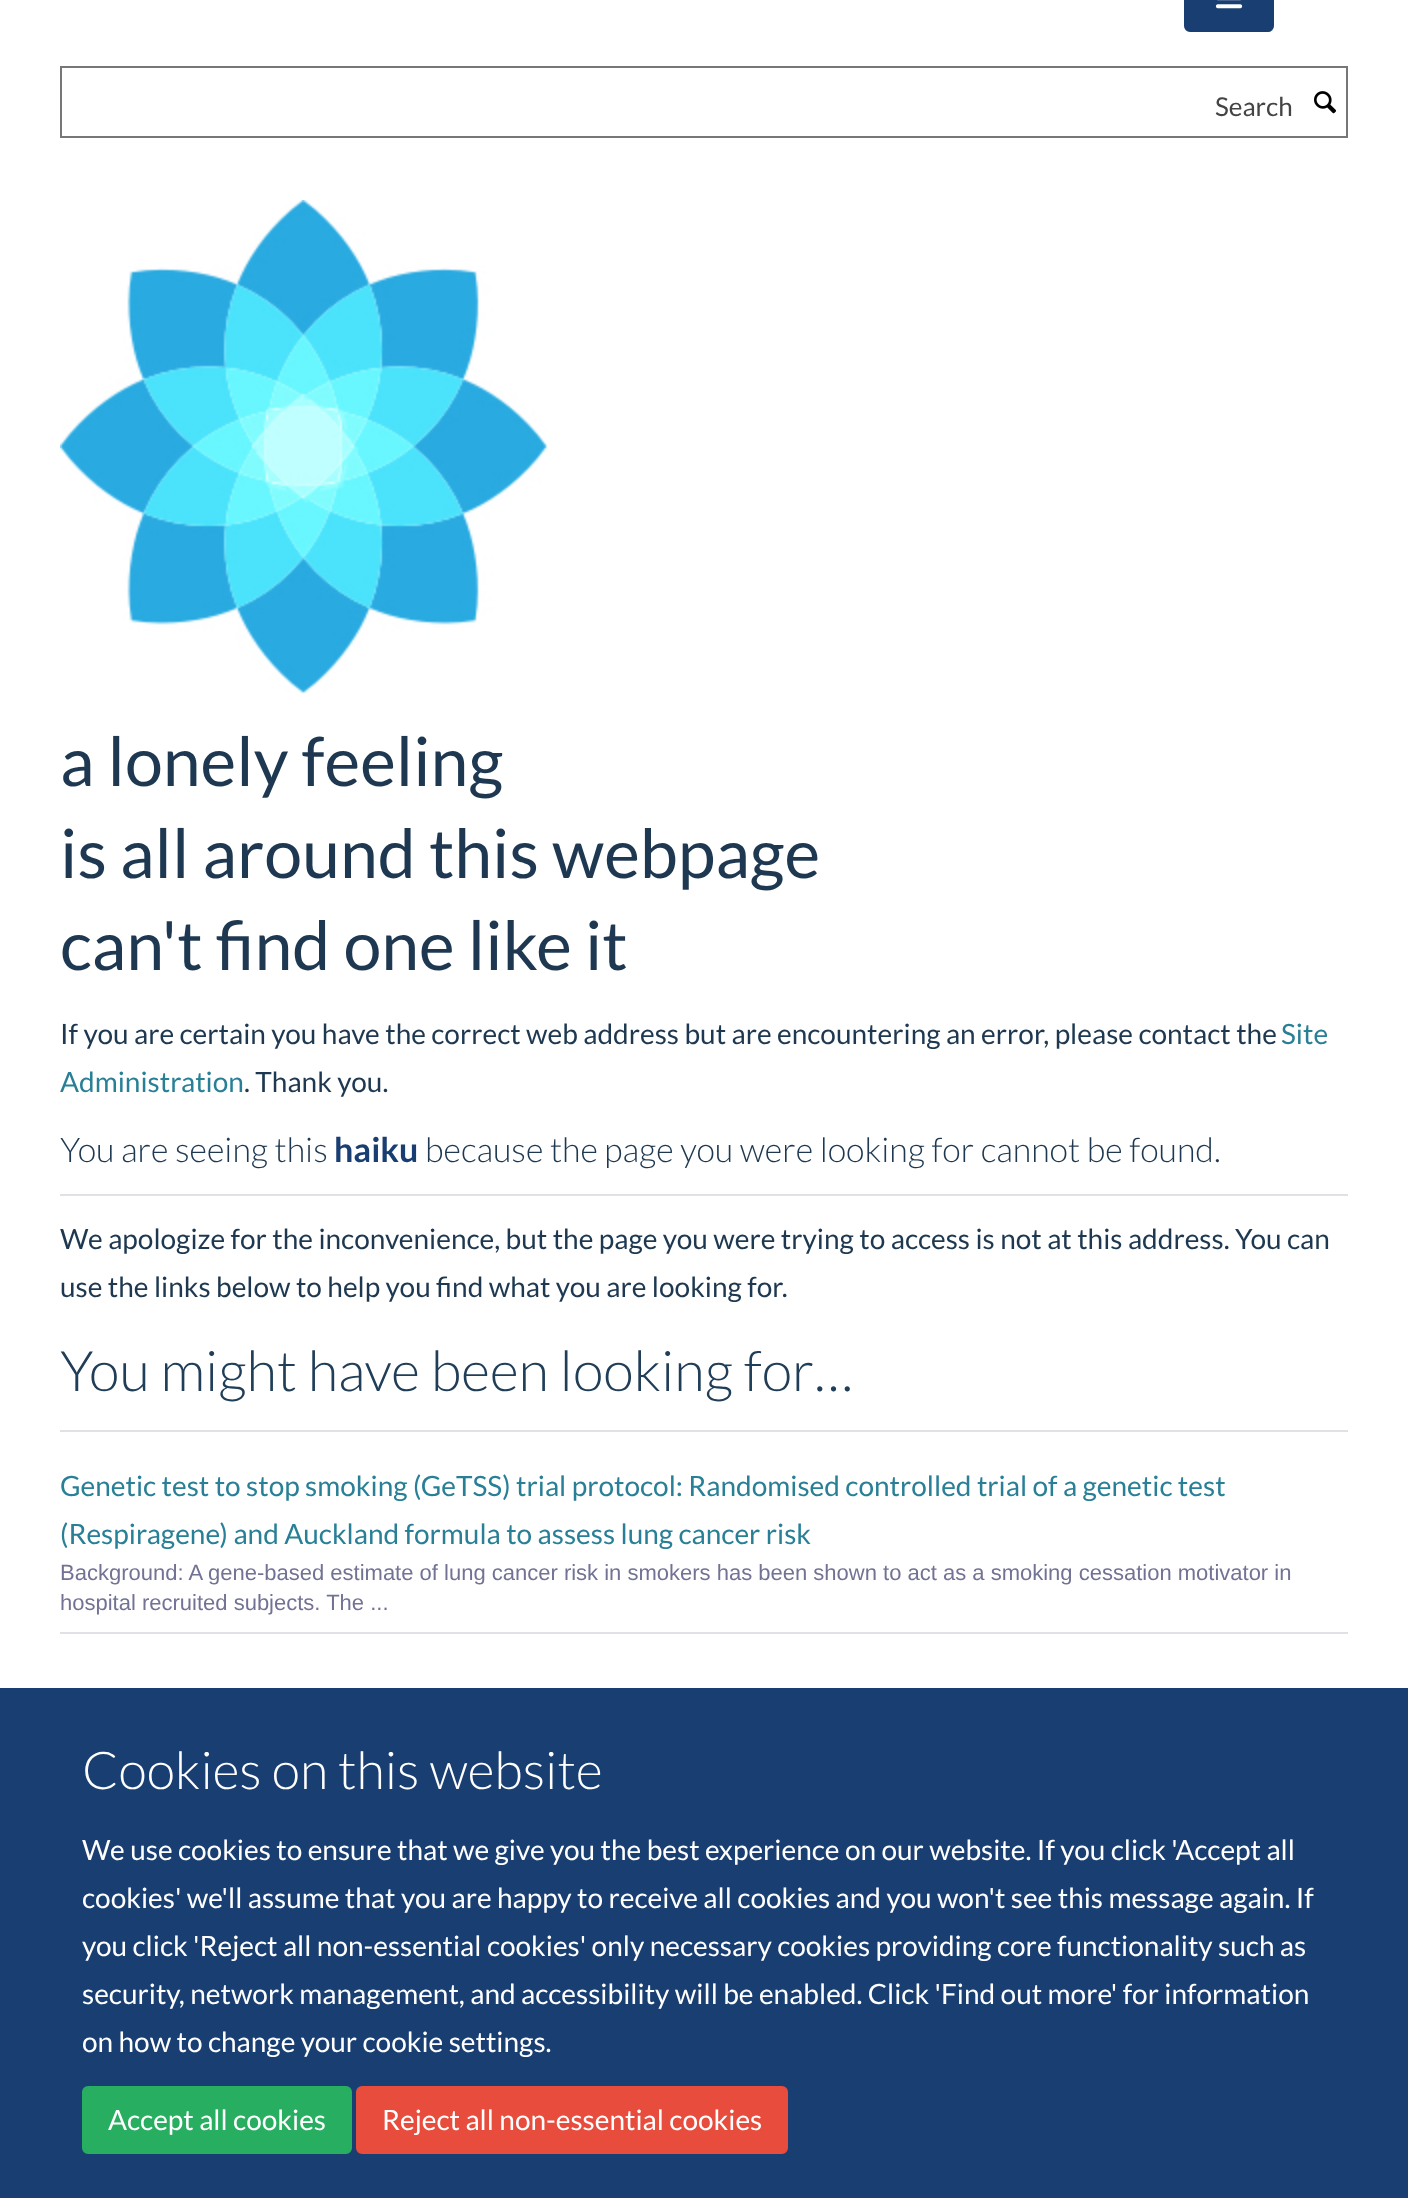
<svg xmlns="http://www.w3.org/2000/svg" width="1408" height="2198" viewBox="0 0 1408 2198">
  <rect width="100%" height="100%" fill="#ffffff"/>
  <rect x="1185" y="-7" width="88" height="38" rx="5" fill="#193e72" stroke="#193e72" stroke-width="2"/>
  <image x="1215" y="0" width="28" height="9" href="img1.png"/>
  <rect x="61" y="67" width="1286" height="70" fill="none" stroke="#777777" stroke-width="2"/>
  <text x="1215" y="116" font-family="Lato" font-size="26" fill="#444444">Search</text>
  <image x="1314" y="91" width="23" height="23" href="img2.png"/>
  <image x="60" y="200" width="488" height="494" href="img3.png"/>
  <text x="60" y="786" font-family="Lato" font-size="68" fill="#1d3850">a lonely feeling</text>
  <text x="60" y="878" font-family="Lato" font-size="68" fill="#1d3850">is all around this webpage</text>
  <text x="60" y="970" font-family="Lato" font-size="68" fill="#1d3850">can't find one like it</text>
  <text x="60" y="1044" font-family="Lato" font-size="28" fill="#1d3850">If you are certain you have the correct web address but are encountering an error, please contact the</text>
  <text x="1281" y="1044" font-family="Lato" font-size="28" fill="#298096">Site</text>
  <text x="60" y="1092" font-family="Lato" font-size="28" fill="#298096">Administration</text>
  <text x="244" y="1092" font-family="Lato" font-size="28" fill="#1d3850">. Thank you.</text>
  <rect x="60" y="1194" width="1288" height="2" fill="#dfe1e4"/>
  <text x="60" y="1162" font-family="Lato" font-size="34" font-weight="300" fill="#1d3850">You are seeing this</text>
  <text x="334" y="1162" font-family="Lato" font-size="34" font-weight="bold" fill="#193e72">haiku</text>
  <text x="425" y="1162" font-family="Lato" font-size="34" font-weight="300" fill="#1d3850">because the page you were looking for cannot be found.</text>
  <text x="60" y="1249" font-family="Lato" font-size="28" fill="#1d3850">We apologize for the inconvenience, but the page you were trying to access is not at this address. You can</text>
  <text x="60" y="1297" font-family="Lato" font-size="28" fill="#1d3850">use the links below to help you find what you are looking for.</text>
  <rect x="60" y="1430" width="1288" height="2" fill="#dfe1e4"/>
  <text x="60" y="1391" font-family="Lato" font-size="56" font-weight="300" fill="#203e58">You might have been looking for…</text>
  <rect x="60" y="1632" width="1288" height="2" fill="#dfe1e4"/>
  <text x="60" y="1496" font-family="Lato" font-size="28" fill="#298096">Genetic test to stop smoking (GeTSS) trial protocol: Randomised controlled trial of a genetic test</text>
  <text x="60" y="1544" font-family="Lato" font-size="28" fill="#298096">(Respiragene) and Auckland formula to assess lung cancer risk</text>
  <text x="60" y="1580" font-family="Liberation Sans" font-size="22" fill="#727295">Background: A gene-based estimate of lung cancer risk in smokers has been shown to act as a smoking cessation motivator in</text>
  <text x="60" y="1610" font-family="Liberation Sans" font-size="22" fill="#727295">hospital recruited subjects. The ...</text>
  <rect x="0" y="1688" width="1408" height="510" fill="#193e72"/>
  <text x="82" y="1789" font-family="Lato" font-size="52" font-weight="300" fill="#ffffff">Cookies on this website</text>
  <text x="82" y="1860" font-family="Lato" font-size="28" fill="#ffffff">We use cookies to ensure that we give you the best experience on our website. If you click 'Accept all</text>
  <text x="82" y="1908" font-family="Lato" font-size="28" fill="#ffffff">cookies' we'll assume that you are happy to receive all cookies and you won't see this message again. If</text>
  <text x="82" y="1956" font-family="Lato" font-size="28" fill="#ffffff">you click 'Reject all non-essential cookies' only necessary cookies providing core functionality such as</text>
  <text x="82" y="2004" font-family="Lato" font-size="28" fill="#ffffff">security, network management, and accessibility will be enabled. Click 'Find out more' for information</text>
  <text x="82" y="2052" font-family="Lato" font-size="28" fill="#ffffff">on how to change your cookie settings.</text>
  <rect x="83" y="2087" width="268" height="66" rx="5" fill="#27ae60" stroke="#27ae60" stroke-width="2"/>
  <text x="108" y="2130" font-family="Lato" font-size="28" fill="#ffffff">Accept all cookies</text>
  <rect x="357" y="2087" width="430" height="66" rx="5" fill="#e74c3c" stroke="#e74c3c" stroke-width="2"/>
  <text x="382" y="2130" font-family="Lato" font-size="28" fill="#ffffff">Reject all non-essential cookies</text>
</svg>
